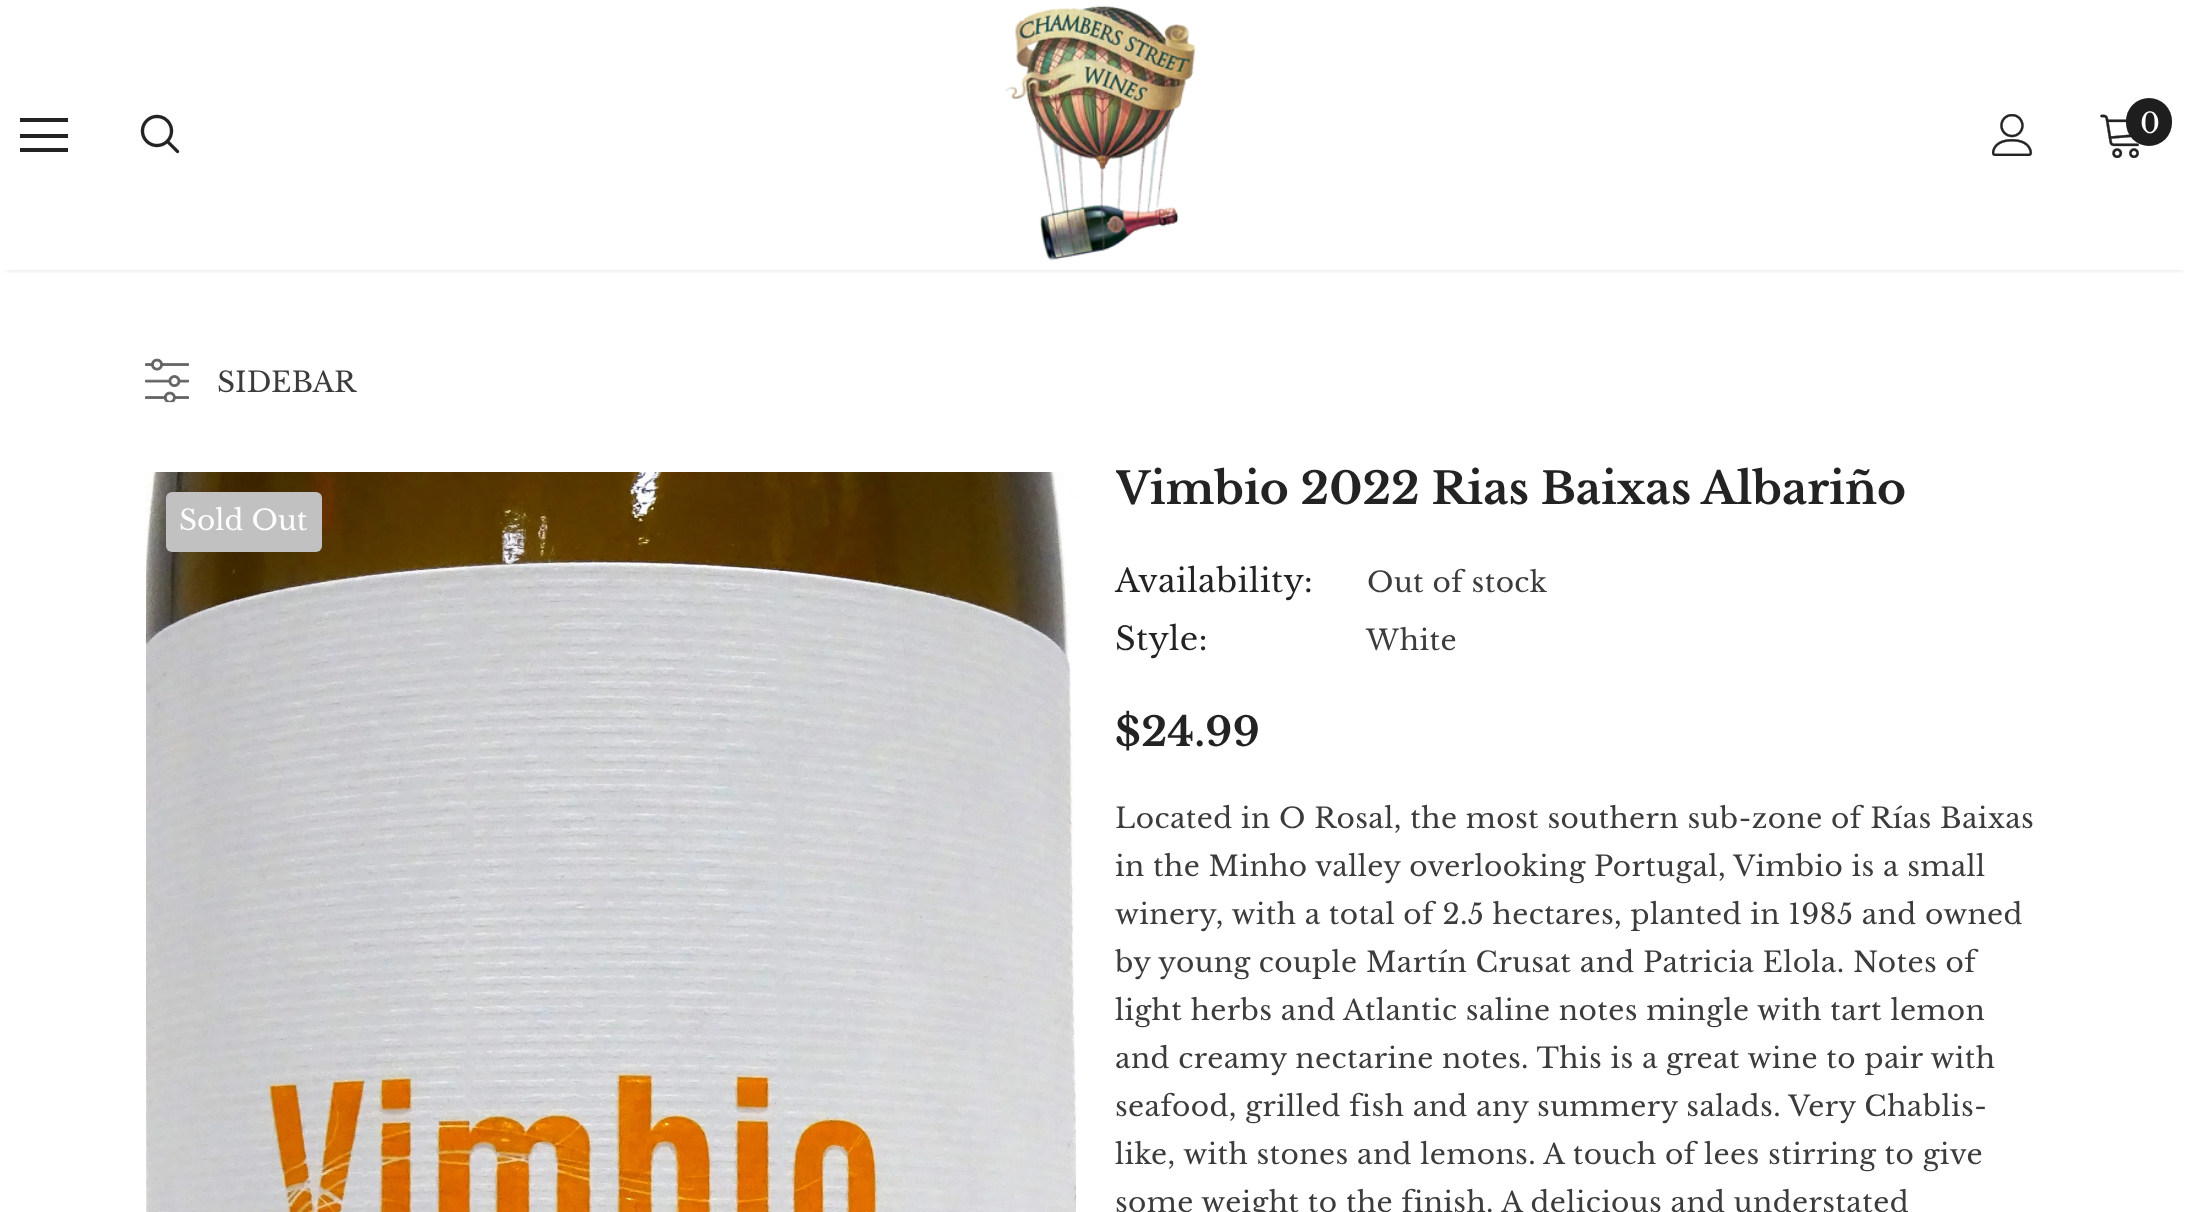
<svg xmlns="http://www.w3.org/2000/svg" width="2189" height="1212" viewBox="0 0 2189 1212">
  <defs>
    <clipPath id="clip1"><rect x="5" y="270" width="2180" height="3"/></clipPath>
    <filter id="blur1" x="-50%" y="-200%" width="200%" height="500%"><feGaussianBlur stdDeviation="3"/></filter>
    <clipPath id="clip2"><rect x="1116" y="458" width="930" height="64"/></clipPath>
  </defs>
  <rect width="100%" height="100%" fill="#ffffff"/>
  <g clip-path="url(#clip1)">
    <rect x="6" y="12" width="2178" height="258" fill="#000000" fill-opacity="0.12" filter="url(#blur1)"/>
  </g>
  <rect x="20" y="118" width="48" height="4" fill="#232323"/>
  <rect x="20" y="134" width="48" height="4" fill="#232323"/>
  <rect x="20" y="148" width="48" height="4" fill="#232323"/>
  <image x="140" y="114" width="40" height="40" href="img1.png"/>
  <image x="1005" y="5" width="191" height="256" href="img2.png"/>
  <image x="1992" y="114" width="41" height="42" href="img3.png"/>
  <image x="2100" y="114" width="39" height="44" href="img4.png"/>
  <rect x="2126" y="98" width="46" height="48" rx="23" fill="#1e1e1e"/>
  <text x="2140" y="133" font-family="Libre Baskerville" font-size="28" fill="#ffffff">0</text>
  <image x="145" y="358" width="44" height="45" href="img5.png"/>
  <text x="217" y="392" font-family="Libre Baskerville" font-size="28" fill="#3c3c3c">SIDEBAR</text>
  <image x="146" y="472" width="930" height="740" href="img6.png"/>
  <rect x="166" y="492" width="156" height="60" rx="6" fill="#c1c1c1"/>
  <text x="179" y="530" font-family="Libre Baskerville" font-size="28" fill="#ffffff">Sold Out</text>
  <g clip-path="url(#clip2)">
    <text x="1115" y="504" font-family="Libre Baskerville" font-size="44" font-weight="bold" fill="#232323">Vimbio 2022 Rias Baixas Albariño</text>
  </g>
  <text x="1115" y="592" font-family="Libre Baskerville" font-size="32" letter-spacing="0.4" fill="#232323">Availability:</text>
  <text x="1367" y="592" font-family="Libre Baskerville" font-size="28" letter-spacing="0.4" fill="#3c3c3c">Out of stock</text>
  <text x="1115" y="650" font-family="Libre Baskerville" font-size="32" letter-spacing="0.4" fill="#232323">Style:</text>
  <text x="1366" y="650" font-family="Libre Baskerville" font-size="28" letter-spacing="0.4" fill="#3c3c3c">White</text>
  <text x="1115" y="746" font-family="Libre Baskerville" font-size="40" font-weight="bold" letter-spacing="0.4" fill="#232323">$24.99</text>
  <text x="1115" y="828" font-family="Libre Baskerville" font-size="28" letter-spacing="0.4" fill="#3c3c3c">Located in O Rosal, the most southern sub-zone of Rías Baixas</text>
  <text x="1115" y="876" font-family="Libre Baskerville" font-size="28" letter-spacing="0.4" fill="#3c3c3c">in the Minho valley overlooking Portugal, Vimbio is a small</text>
  <text x="1115" y="924" font-family="Libre Baskerville" font-size="28" letter-spacing="0.4" fill="#3c3c3c">winery, with a total of 2.5 hectares, planted in 1985 and owned</text>
  <text x="1115" y="972" font-family="Libre Baskerville" font-size="28" letter-spacing="0.4" fill="#3c3c3c">by young couple Martín Crusat and Patricia Elola. Notes of</text>
  <text x="1115" y="1020" font-family="Libre Baskerville" font-size="28" letter-spacing="0.4" fill="#3c3c3c">light herbs and Atlantic saline notes mingle with tart lemon</text>
  <text x="1115" y="1068" font-family="Libre Baskerville" font-size="28" letter-spacing="0.4" fill="#3c3c3c">and creamy nectarine notes. This is a great wine to pair with</text>
  <text x="1115" y="1116" font-family="Libre Baskerville" font-size="28" letter-spacing="0.4" fill="#3c3c3c">seafood, grilled fish and any summery salads. Very Chablis-</text>
  <text x="1115" y="1164" font-family="Libre Baskerville" font-size="28" letter-spacing="0.4" fill="#3c3c3c">like, with stones and lemons. A touch of lees stirring to give</text>
  <text x="1115" y="1212" font-family="Libre Baskerville" font-size="28" letter-spacing="0.4" fill="#3c3c3c">some weight to the finish. A delicious and understated</text>
</svg>
